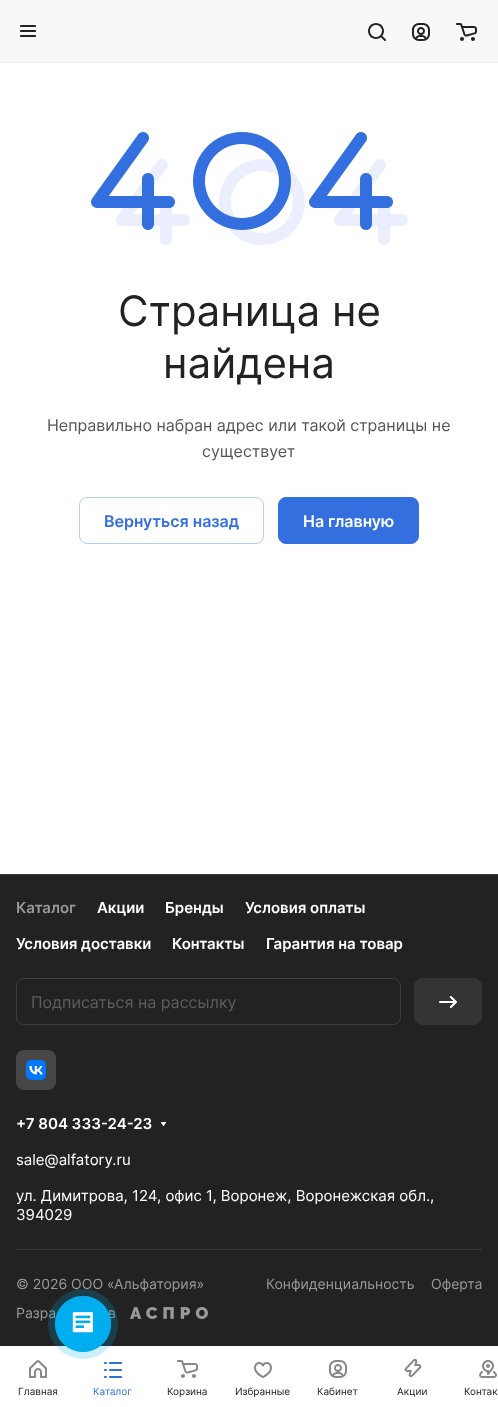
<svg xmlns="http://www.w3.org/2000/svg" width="498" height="1407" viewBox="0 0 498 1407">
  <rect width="100%" height="100%" fill="#ffffff"/>
  <rect x="0" y="62" width="498" height="1" fill="#ededed"/>
  <rect x="0" y="0" width="498" height="62" fill="#f8f8f8"/>
  <image x="20" y="25" width="16" height="12" href="img1.png"/>
  <image x="368" y="23" width="18" height="18" href="img2.png"/>
  <image x="412" y="23" width="18" height="18" href="img3.png"/>
  <image x="456" y="23" width="21" height="18" href="img4.png"/>
  <image x="91" y="132" width="317" height="113" href="img5.png"/>
  <text x="118" y="326" font-family="Inter" font-size="42" fill="#222222">Страница не</text>
  <text x="163" y="378" font-family="Inter" font-size="42" fill="#222222">найдена</text>
  <text x="47" y="431" font-family="Inter" font-size="16" fill="#555555">Неправильно набран адрес или такой страницы не</text>
  <text x="202" y="457" font-family="Inter" font-size="16" fill="#555555">существует</text>
  <rect x="79.5" y="497.5" width="184" height="46" rx="7.5" fill="none" stroke="#b8cdf4"/>
  <text x="104" y="527" font-family="Inter" font-size="16" font-weight="600" fill="#336fdf">Вернуться назад</text>
  <rect x="278.5" y="497.5" width="140" height="46" rx="7.5" fill="#336fdf" stroke="#336fdf"/>
  <text x="303" y="527" font-family="Inter" font-size="16" font-weight="600" fill="#ffffff">На главную</text>
  <rect x="0" y="875" width="498" height="471" fill="#222222"/>
  <rect x="0" y="874" width="498" height="1" fill="#383838"/>
  <text x="16" y="913" font-family="Inter" font-size="15" font-weight="600" fill="#999999">Каталог</text>
  <text x="97" y="913" font-family="Inter" font-size="15" font-weight="600" fill="#ffffff">Акции</text>
  <text x="165" y="913" font-family="Inter" font-size="15" font-weight="600" fill="#ffffff">Бренды</text>
  <text x="245" y="913" font-family="Inter" font-size="15" font-weight="600" fill="#ffffff">Условия оплаты</text>
  <text x="16" y="949" font-family="Inter" font-size="15" font-weight="600" fill="#ffffff">Условия доставки</text>
  <text x="172" y="949" font-family="Inter" font-size="15" font-weight="600" fill="#ffffff">Контакты</text>
  <text x="266" y="949" font-family="Inter" font-size="15" font-weight="600" fill="#ffffff">Гарантия на товар</text>
  <rect x="16.5" y="978.5" width="384" height="46" rx="7.5" fill="none" stroke="#3e3e3e"/>
  <text x="31" y="1008" font-family="Inter" font-size="16" fill="#5e5e5e">Подписаться на рассылку</text>
  <rect x="414.5" y="978.5" width="67" height="46" rx="7.5" fill="#343434" stroke="#343434"/>
  <image x="439" y="996" width="18" height="12" href="img6.png"/>
  <rect x="16" y="1050" width="40" height="40" rx="8" fill="#474747"/>
  <image x="26" y="1060" width="20" height="20" href="img7.png"/>
  <text x="16" y="1129" font-family="Inter" font-size="15" font-weight="600" fill="#ffffff">+7 804 333-24-23</text>
  <image x="161" y="1122" width="5" height="4" href="img8.png"/>
  <text x="16" y="1165" font-family="Inter" font-size="15" fill="#ffffff">sale@alfatory.ru</text>
  <text x="16" y="1201" font-family="Inter" font-size="15" fill="#ffffff">ул. Димитрова, 124, офис 1, Воронеж, Воронежская обл.,</text>
  <text x="16" y="1220" font-family="Inter" font-size="15" fill="#ffffff">394029</text>
  <rect x="16" y="1249" width="466" height="1" fill="#383838"/>
  <text x="16" y="1289" font-family="Inter" font-size="14" fill="#999999">© 2026 ООО «Альфатория»</text>
  <text x="266" y="1289" font-family="Inter" font-size="14" fill="#999999">Конфиденциальность</text>
  <text x="431" y="1289" font-family="Inter" font-size="14" fill="#999999">Оферта</text>
  <text x="16" y="1318" font-family="Inter" font-size="14" fill="#999999">Разра</text>
  <text x="108" y="1318" font-family="Inter" font-size="14" fill="#999999">в</text>
  <image x="130" y="1307" width="78" height="12" href="img9.png"/>
  <circle cx="83" cy="1324" r="35" fill="#00aeef" fill-opacity="0.2"/>
  <circle cx="83" cy="1324" r="27.6" fill="none" stroke="#00aeef" stroke-width="0.8"/>
  <circle cx="83" cy="1324" r="28" fill="#00aeef"/>
  <image x="72" y="1312" width="21" height="21" href="img10.png"/>
  <image x="29" y="1360" width="18" height="18" href="img11.png"/>
  <text x="18" y="1395" font-family="Inter" font-size="10" fill="#222222">Главная</text>
  <image x="104" y="1362" width="18" height="16" href="img12.png"/>
  <text x="93" y="1395" font-family="Inter" font-size="10" fill="#336fdf">Каталог</text>
  <image x="177" y="1360" width="21" height="18" href="img13.png"/>
  <text x="167" y="1395" font-family="Inter" font-size="10" fill="#222222">Корзина</text>
  <image x="254" y="1362" width="18" height="16" href="img14.png"/>
  <text x="235" y="1395" font-family="Inter" font-size="10" fill="#222222">Избранные</text>
  <image x="329" y="1360" width="18" height="18" href="img15.png"/>
  <text x="317" y="1395" font-family="Inter" font-size="10" fill="#222222">Кабинет</text>
  <image x="404" y="1358" width="18" height="20" href="img16.png"/>
  <text x="397" y="1395" font-family="Inter" font-size="10" fill="#222222">Акции</text>
  <image x="479" y="1360" width="18" height="18" href="img17.png"/>
  <text x="464" y="1395" font-family="Inter" font-size="10" fill="#222222">Контак</text>
</svg>
